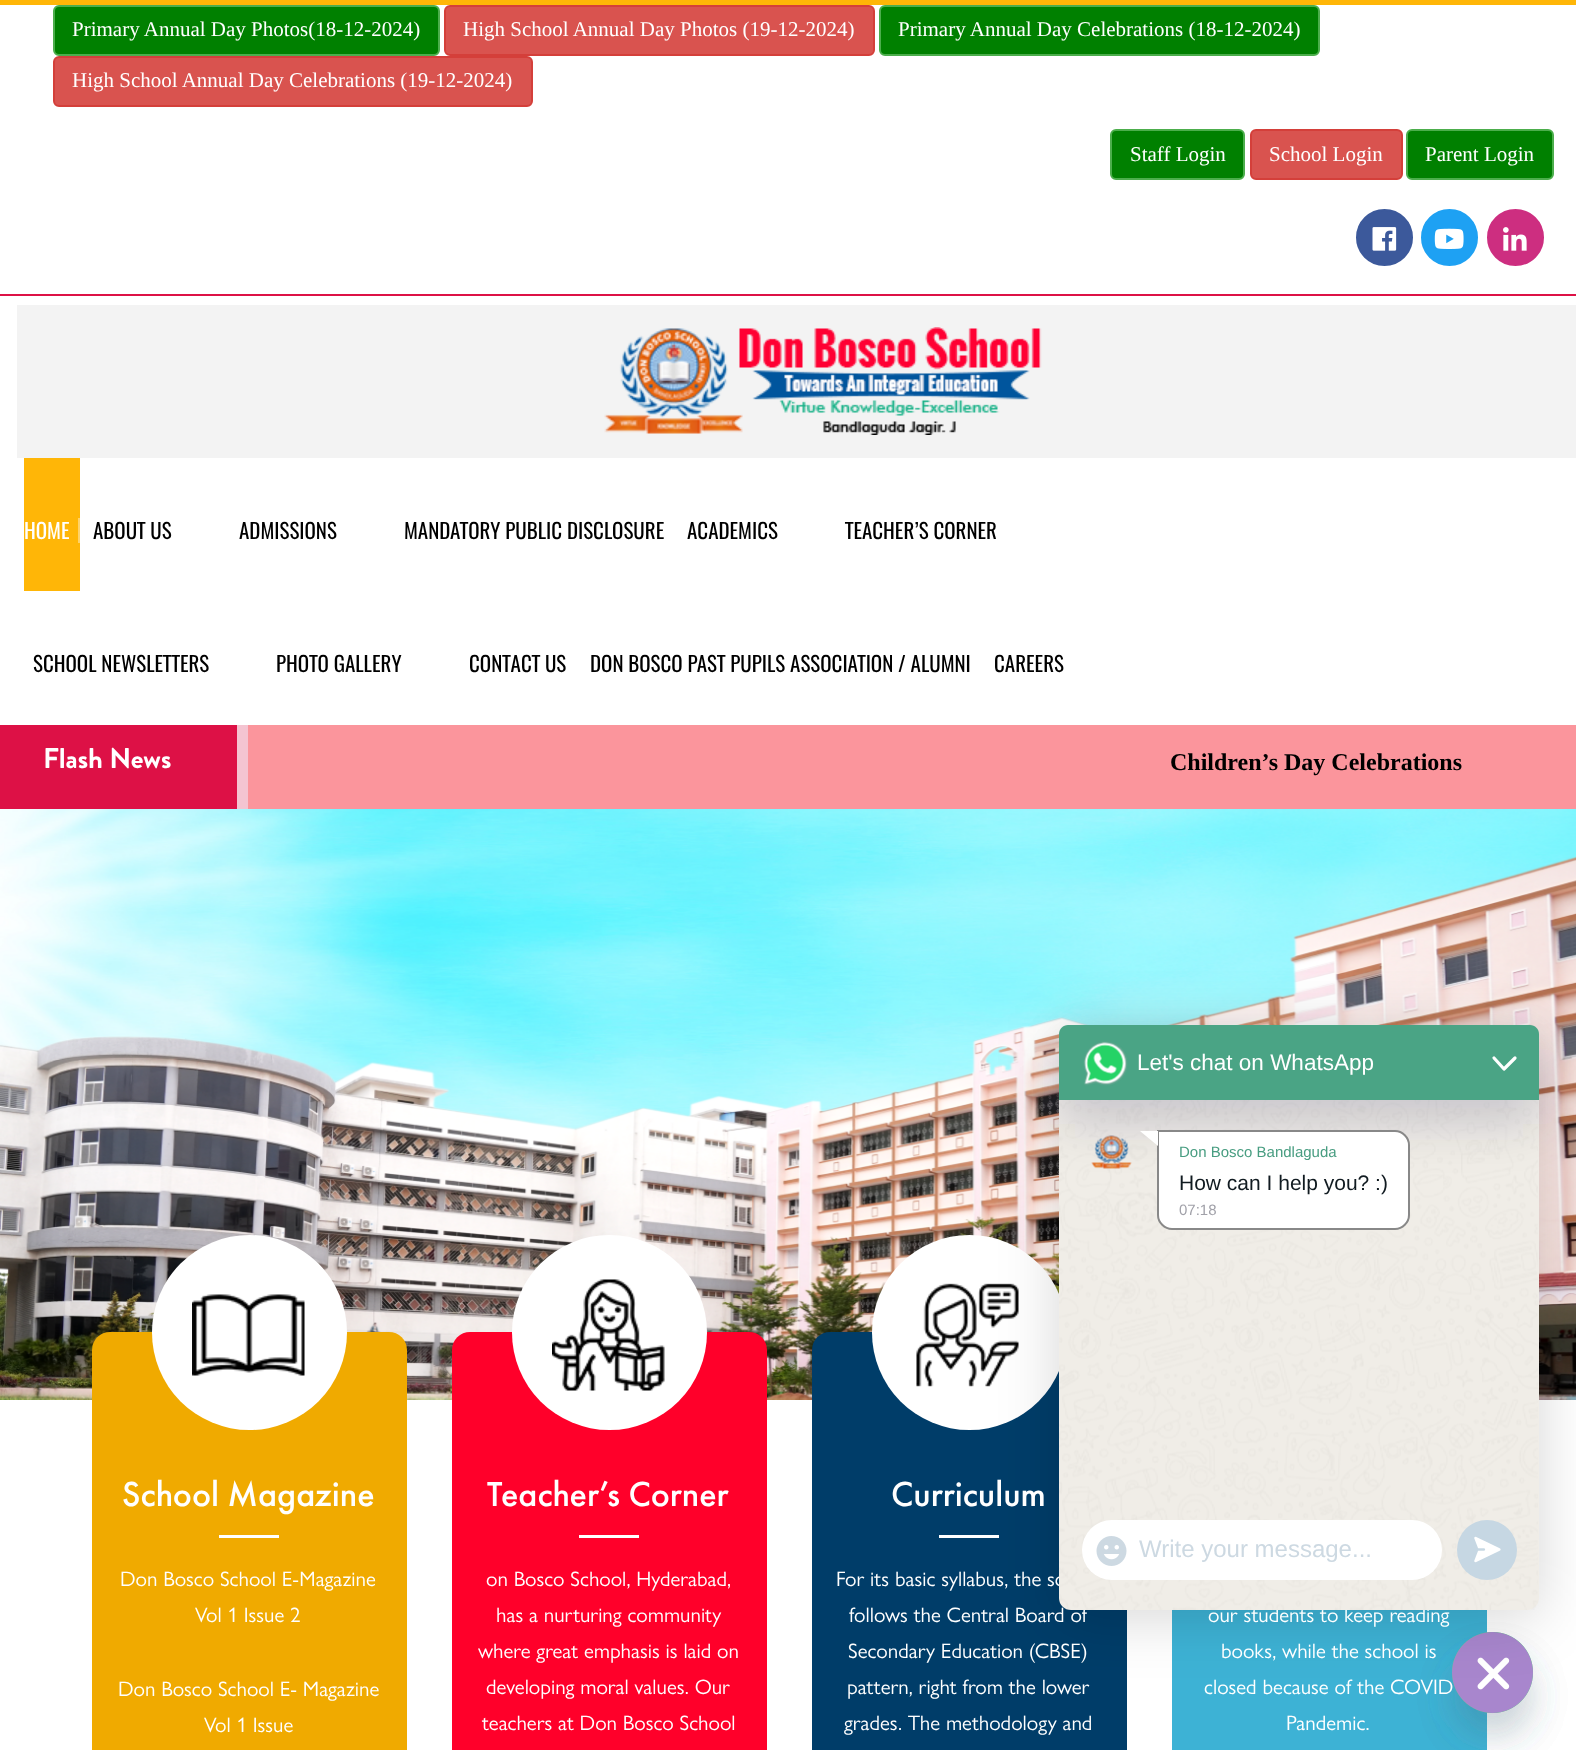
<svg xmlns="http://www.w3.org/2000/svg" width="1576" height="1750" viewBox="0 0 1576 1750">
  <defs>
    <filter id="blur1" x="-50%" y="-200%" width="200%" height="500%"><feGaussianBlur stdDeviation="18"/></filter>
    <filter id="blur2" x="-50%" y="-200%" width="200%" height="500%"><feGaussianBlur stdDeviation="30"/></filter>
    <filter id="blur3" x="-50%" y="-200%" width="200%" height="500%"><feGaussianBlur stdDeviation="24"/></filter>
  </defs>
  <rect width="100%" height="100%" fill="#ffffff"/>
  <rect x="0" y="0" width="1576" height="5" fill="#ffb607"/>
  <rect x="54" y="6" width="385" height="49" rx="5" fill="#008000" stroke="#4cae4c" stroke-width="2"/>
  <text x="72" y="36" font-family="Liberation Serif" font-size="21" fill="#ffffff">Primary Annual Day Photos(18-12-2024)</text>
  <rect x="445" y="6" width="429" height="49" rx="5" fill="#d9534f" stroke="#d43f3a" stroke-width="2"/>
  <text x="463" y="36" font-family="Liberation Serif" font-size="21" fill="#ffffff">High School Annual Day Photos (19-12-2024)</text>
  <rect x="880" y="6" width="439" height="49" rx="5" fill="#008000" stroke="#4cae4c" stroke-width="2"/>
  <text x="898" y="36" font-family="Liberation Serif" font-size="21" fill="#ffffff">Primary Annual Day Celebrations (18-12-2024)</text>
  <rect x="54" y="57" width="478" height="49" rx="5" fill="#d9534f" stroke="#d43f3a" stroke-width="2"/>
  <text x="72" y="87" font-family="Liberation Serif" font-size="21" fill="#ffffff">High School Annual Day Celebrations (19-12-2024)</text>
  <rect x="1111" y="130" width="133" height="49" rx="5" fill="#008000" stroke="#4cae4c" stroke-width="2"/>
  <text x="1130" y="161" font-family="Liberation Serif" font-size="21" fill="#ffffff">Staff Login</text>
  <rect x="1251" y="130" width="151" height="49" rx="5" fill="#d9534f" stroke="#d43f3a" stroke-width="2"/>
  <text x="1269" y="161" font-family="Liberation Serif" font-size="21" fill="#ffffff">School Login</text>
  <rect x="1407" y="130" width="146" height="49" rx="5" fill="#008000" stroke="#4cae4c" stroke-width="2"/>
  <text x="1425" y="161" font-family="Liberation Serif" font-size="21" fill="#ffffff">Parent Login</text>
  <rect x="0" y="294" width="1576" height="2" fill="#dd1146"/>
  <circle cx="1384.5" cy="237.5" r="27.5" fill="#3c599b" stroke="#3c599b" stroke-width="2"/>
  <image x="1372" y="227" width="25" height="24" href="img1.png"/>
  <circle cx="1449.5" cy="237.5" r="27.5" fill="#1ea1f3" stroke="#1ea1f3" stroke-width="2"/>
  <image x="1434" y="228" width="30" height="21" href="img2.png"/>
  <circle cx="1515.5" cy="237.5" r="27.5" fill="#cd2e80" stroke="#cd2e80" stroke-width="2"/>
  <image x="1503" y="227" width="24" height="24" href="img3.png"/>
  <rect x="17" y="305" width="1559" height="153" fill="#f3f3f3"/>
  <image x="604" y="327" width="438" height="108" href="img4.png"/>
  <rect x="24" y="458" width="56" height="133" fill="#ffb607"/>
  <rect x="78" y="518" width="2" height="25" fill="#ffd36a"/>
  <text x="24" y="539" font-family="Oswald" font-size="21" fill="#ffffff">HOME</text>
  <text x="93" y="539" font-family="Oswald" font-size="21" fill="#000000">ABOUT US</text>
  <text x="239" y="539" font-family="Oswald" font-size="21" fill="#000000">ADMISSIONS</text>
  <text x="404" y="539" font-family="Oswald" font-size="21" fill="#000000">MANDATORY PUBLIC DISCLOSURE</text>
  <text x="687" y="539" font-family="Oswald" font-size="21" fill="#000000">ACADEMICS</text>
  <text x="845" y="539" font-family="Oswald" font-size="21" fill="#000000">TEACHER’S CORNER</text>
  <text x="33" y="672" font-family="Oswald" font-size="21" fill="#000000">SCHOOL NEWSLETTERS</text>
  <text x="276" y="672" font-family="Oswald" font-size="21" fill="#000000">PHOTO GALLERY</text>
  <text x="469" y="672" font-family="Oswald" font-size="21" fill="#000000">CONTACT US</text>
  <text x="590" y="672" font-family="Oswald" font-size="21" fill="#000000">DON BOSCO PAST PUPILS ASSOCIATION / ALUMNI</text>
  <text x="994" y="672" font-family="Oswald" font-size="21" fill="#000000">CAREERS</text>
  <rect x="0" y="725" width="237" height="84" fill="#dd1146"/>
  <rect x="237" y="725" width="11" height="84" fill="#f4c4d1"/>
  <text x="43" y="768" font-family="Brandon Grotesque" font-size="28.5" font-weight="bold" fill="#ffffff">Flash News</text>
  <rect x="248" y="725" width="1328" height="84" fill="#fb959c"/>
  <text x="1170" y="770" font-family="Liberation Serif" font-size="24" font-weight="bold" fill="#000000">Children’s Day Celebrations</text>
  <image x="0" y="809" width="1576" height="591" href="img5.png"/>
  <rect x="812" y="1332" width="315" height="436" rx="18" fill="#003d69"/>
  <circle cx="969.5" cy="1332.5" r="97.5" fill="#ffffff"/>
  <image x="916" y="1283" width="103" height="104" href="img13.png"/>
  <rect x="939" y="1535" width="60" height="3" fill="#ffffff"/>
  <rect x="1172" y="1610" width="315" height="140" fill="#3db2d5"/>
  <rect x="1452" y="1656" width="81" height="81" rx="40.5" fill="#49687e" fill-opacity="0.16" filter="url(#blur1)"/>
  <image x="1452" y="1632" width="81" height="81" href="img14.png"/>
  <rect x="1452" y="1656" width="81" height="81" rx="40.5" fill="#49687e" fill-opacity="0.16" filter="url(#blur1)"/>
  <image x="1452" y="1632" width="81" height="81" href="img15.png"/>
  <rect x="1059" y="1032" width="480" height="585" rx="9" fill="#000000" fill-opacity="0.16" filter="url(#blur2)"/>
  <text x="836" y="1586" font-family="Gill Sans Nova" font-size="21" fill="#ffffff">For its basic syllabus, the sc</text>
  <text x="849" y="1622" font-family="Gill Sans Nova" font-size="21" fill="#ffffff">follows the Central Board of</text>
  <text x="1208" y="1622" font-family="Gill Sans Nova" font-size="21" fill="#ffffff">our students to keep reading</text>
  <rect x="1059" y="1025" width="480" height="585" rx="12" fill="#f0ede7"/>
  <image x="1059" y="1100" width="479" height="510" href="img7.png"/>
  <rect x="1059" y="1049" width="480" height="75" rx="9" fill="#1a0e35" fill-opacity="0.16" filter="url(#blur3)"/>
  <path d="M1068 1025H1530C1535 1025 1539 1029 1539 1034V1100H1059V1034C1059 1029 1063 1025 1068 1025Z" fill="#4aa485"/>
  <image x="1083" y="1041" width="45" height="45" href="img6.png"/>
  <text x="1137" y="1070" font-family="Liberation Sans" font-size="22.5" fill="#ffffff">Let's chat on WhatsApp</text>
  <path d="M1494 1058L1504 1069L1515 1058" fill="none" stroke="#ffffff" stroke-width="3.2" stroke-linecap="round" stroke-linejoin="round"/>
  <image x="1091" y="1135" width="41" height="34" href="img8.png"/>
  <path d="M1158 1131H1395C1402.5 1131 1409 1137.5 1409 1145V1215C1409 1222.5 1402.5 1229 1395 1229H1172C1164.5 1229 1158 1222.5 1158 1215Z" fill="#ffffff" stroke="#888888" stroke-width="2"/>
  <path d="M1158 1131V1146L1140 1131Z" fill="#ffffff"/>
  <text x="1179" y="1157" font-family="Liberation Sans" font-size="15" fill="#489d81">Don Bosco Bandlaguda</text>
  <text x="1179" y="1190" font-family="Liberation Sans" font-size="21" fill="#111b21">How can I help you? :)</text>
  <text x="1179" y="1215" font-family="Liberation Sans" font-size="15" fill="#a1a1a9">07:18</text>
  <rect x="1082" y="1520" width="360" height="60" rx="30" fill="#ffffff"/>
  <image x="1096" y="1536" width="31" height="30" href="img9.png"/>
  <text x="1139" y="1557" font-family="Liberation Sans" font-size="24" fill="#cdd9e2">Write your message...</text>
  <circle cx="1487" cy="1550" r="30" fill="#c6d7e3"/>
  <image x="1474" y="1536" width="27" height="27" href="img10.png"/>
  <rect x="92" y="1332" width="315" height="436" rx="18" fill="#f0aa00"/>
  <circle cx="249.5" cy="1332.5" r="97.5" fill="#ffffff"/>
  <image x="192" y="1294" width="113" height="82" href="img11.png"/>
  <text x="122" y="1506" font-family="Futura PT" font-size="36" font-weight="500" fill="#ffffff">School Magazine</text>
  <rect x="219" y="1535" width="60" height="3" fill="#ffffff"/>
  <text x="120" y="1586" font-family="Gill Sans Nova" font-size="21" fill="#ffffff">Don Bosco School E-Magazine</text>
  <text x="195" y="1622" font-family="Gill Sans Nova" font-size="21" fill="#ffffff">Vol 1 Issue 2</text>
  <text x="118" y="1696" font-family="Gill Sans Nova" font-size="21" fill="#ffffff">Don Bosco School E- Magazine</text>
  <text x="204" y="1732" font-family="Gill Sans Nova" font-size="21" fill="#ffffff">Vol 1 Issue</text>
  <rect x="452" y="1332" width="315" height="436" rx="18" fill="#ff002a"/>
  <circle cx="609.5" cy="1332.5" r="97.5" fill="#ffffff"/>
  <image x="552" y="1279" width="113" height="112" href="img12.png"/>
  <text x="487" y="1506" font-family="Futura PT" font-size="36" font-weight="500" fill="#ffffff">Teacher’s Corner</text>
  <rect x="579" y="1535" width="60" height="3" fill="#ffffff"/>
  <text x="486" y="1586" font-family="Gill Sans Nova" font-size="21" fill="#ffffff">on Bosco School, Hyderabad,</text>
  <text x="496" y="1622" font-family="Gill Sans Nova" font-size="21" fill="#ffffff">has a nurturing community</text>
  <text x="478" y="1658" font-family="Gill Sans Nova" font-size="21" fill="#ffffff">where great emphasis is laid on</text>
  <text x="486" y="1694" font-family="Gill Sans Nova" font-size="21" fill="#ffffff">developing moral values. Our</text>
  <text x="482" y="1730" font-family="Gill Sans Nova" font-size="21" fill="#ffffff">teachers at Don Bosco School</text>
  <text x="891" y="1506" font-family="Futura PT" font-size="36" font-weight="500" fill="#ffffff">Curriculum</text>
  <text x="848" y="1658" font-family="Gill Sans Nova" font-size="21" fill="#ffffff">Secondary Education (CBSE)</text>
  <text x="847" y="1694" font-family="Gill Sans Nova" font-size="21" fill="#ffffff">pattern, right from the lower</text>
  <text x="844" y="1730" font-family="Gill Sans Nova" font-size="21" fill="#ffffff">grades. The methodology and</text>
  <text x="1221" y="1658" font-family="Gill Sans Nova" font-size="21" fill="#ffffff">books, while the school is</text>
  <text x="1204" y="1694" font-family="Gill Sans Nova" font-size="21" fill="#ffffff">closed because of the COVID</text>
  <text x="1286" y="1730" font-family="Gill Sans Nova" font-size="21" fill="#ffffff">Pandemic.</text>
</svg>
